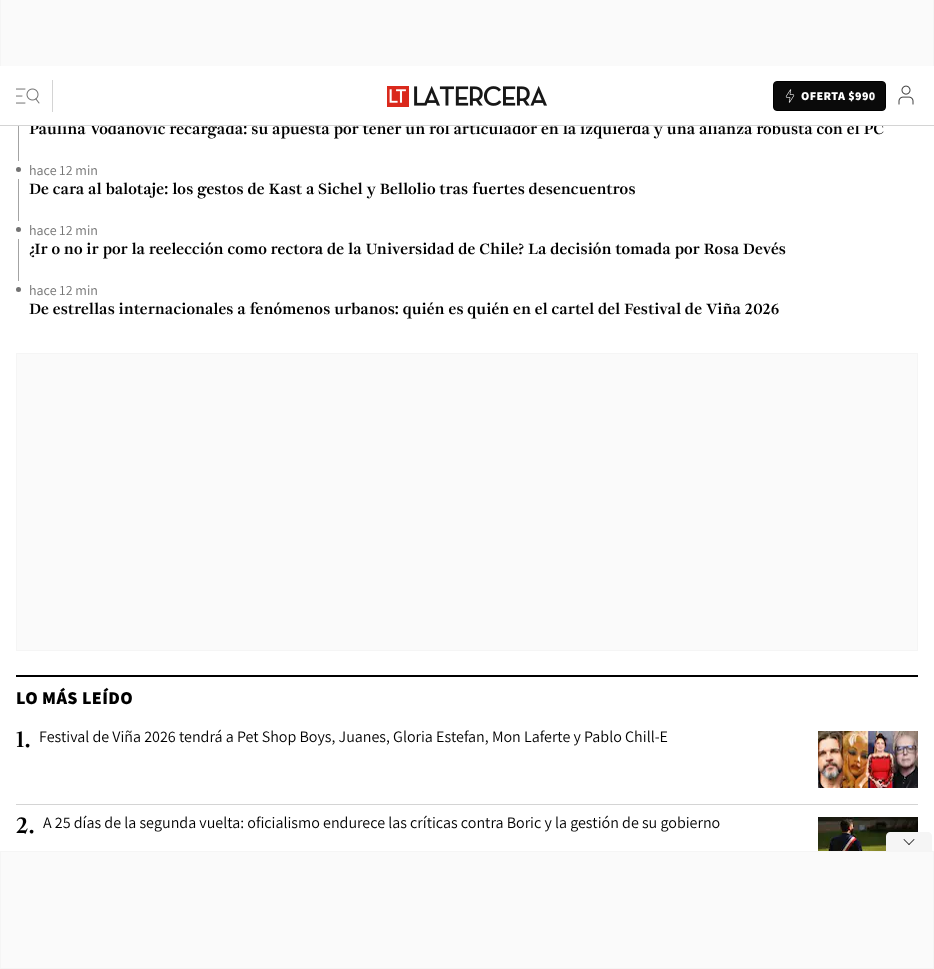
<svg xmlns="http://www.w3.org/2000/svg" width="934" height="969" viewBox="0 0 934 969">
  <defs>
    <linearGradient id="g1" gradientUnits="userSpaceOnUse" x1="873" y1="96" x2="885" y2="96"><stop offset="0" stop-color="#0a0a0a" stop-opacity="0"/><stop offset="0.9" stop-color="#0a0a0a"/></linearGradient>
  </defs>
  <rect width="100%" height="100%" fill="#ffffff"/>
  <rect x="0.5" y="-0.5" width="933" height="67" fill="#fafafa" stroke="#f5f5f5"/>
  <rect x="18" y="119" width="1" height="42" fill="#a3a3a3"/>
  <text x="29" y="134" font-family="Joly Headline" font-size="16" font-weight="bold" fill="#000000">Paulina Vodanovic recargada: su apuesta por tener un rol articulador en la izquierda y una alianza robusta con el PC</text>
  <rect x="0" y="66" width="934" height="59" fill="#ffffff"/>
  <rect x="0" y="125" width="934" height="1" fill="#d4d4d4"/>
  <image x="16" y="88" width="24" height="16" href="img1.png"/>
  <rect x="52" y="80" width="1" height="32" fill="#d4d4d4"/>
  <image x="387" y="86" width="160" height="21" href="img2.png"/>
  <rect x="773.5" y="81.5" width="112" height="29" rx="3.5" fill="#0a0a0a" stroke="#000000"/>
  <image x="785" y="89" width="10" height="14" href="img3.png"/>
  <text x="801" y="100" font-family="Assistant" font-size="12" font-weight="800" letter-spacing="0.4" fill="#ffffff">OFERTA $990</text>
  <path d="M873 82H882C883.5 82 885 83.5 885 85V107C885 108.5 883.5 110 882 110H873Z" fill="url(#g1)"/>
  <image x="898" y="85" width="16" height="20" href="img4.png"/>
  <circle cx="18.5" cy="169.5" r="2.5" fill="#737373"/>
  <text x="29" y="175" font-family="Assistant" font-size="14" fill="#737373">hace 12 min</text>
  <rect x="18" y="179" width="1" height="42" fill="#a3a3a3"/>
  <text x="29" y="194" font-family="Joly Headline" font-size="16" font-weight="bold" fill="#000000">De cara al balotaje: los gestos de Kast a Sichel y Bellolio tras fuertes desencuentros</text>
  <circle cx="18.5" cy="229.5" r="2.5" fill="#737373"/>
  <text x="29" y="235" font-family="Assistant" font-size="14" fill="#737373">hace 12 min</text>
  <rect x="18" y="239" width="1" height="42" fill="#a3a3a3"/>
  <text x="29" y="254" font-family="Joly Headline" font-size="16" font-weight="bold" fill="#000000">¿Ir o no ir por la reelección como rectora de la Universidad de Chile? La decisión tomada por Rosa Devés</text>
  <circle cx="18.5" cy="289.5" r="2.5" fill="#737373"/>
  <text x="29" y="295" font-family="Assistant" font-size="14" fill="#737373">hace 12 min</text>
  <text x="29" y="314" font-family="Joly Headline" font-size="16" font-weight="bold" fill="#000000">De estrellas internacionales a fenómenos urbanos: quién es quién en el cartel del Festival de Viña 2026</text>
  <rect x="16.5" y="353.5" width="901" height="297" fill="#fafafa" stroke="#f5f5f5"/>
  <rect x="16" y="675" width="902" height="2" fill="#000000"/>
  <text x="16" y="704" font-family="Assistant" font-size="18" font-weight="800" letter-spacing="0.4" fill="#000000">LO MÁS LEÍDO</text>
  <rect x="16" y="804" width="902" height="1" fill="#d4d4d4"/>
  <text x="16" y="747" font-family="Joly Headline" font-size="24" font-weight="bold" fill="#000000">1</text>
  <text x="24" y="747" font-family="Joly Headline" font-size="24" font-weight="bold" fill="#000000">.</text>
  <text x="39" y="742" font-family="Assistant" font-size="16" fill="#000000">Festival de Viña 2026 tendrá a Pet Shop Boys, Juanes, Gloria Estefan, Mon Laferte y Pablo Chill-E</text>
  <image x="818" y="731" width="100" height="57" href="img5.png"/>
  <text x="16" y="833" font-family="Joly Headline" font-size="24" font-weight="bold" fill="#000000">2.</text>
  <text x="43" y="828" font-family="Assistant" font-size="16" fill="#000000">A 25 días de la segunda vuelta: oficialismo endurece las críticas contra Boric y la gestión de su gobierno</text>
  <image x="818" y="817" width="100" height="34" href="img6.png"/>
  <rect x="0.5" y="851.5" width="933" height="117" fill="#fafafa" stroke="#f5f5f5"/>
  <path d="M932 836V852H886V836C886 834 888 832 890 832H928C930 832 932 834 932 836Z" fill="#f5f5f5"/>
  <path d="M914.5 839.5L909 845L908.5 844.5L914 839Z" fill="#000000"/>
  <path d="M904 839L909.5 844.5L909 845L903.5 839.5Z" fill="#000000"/>
</svg>
